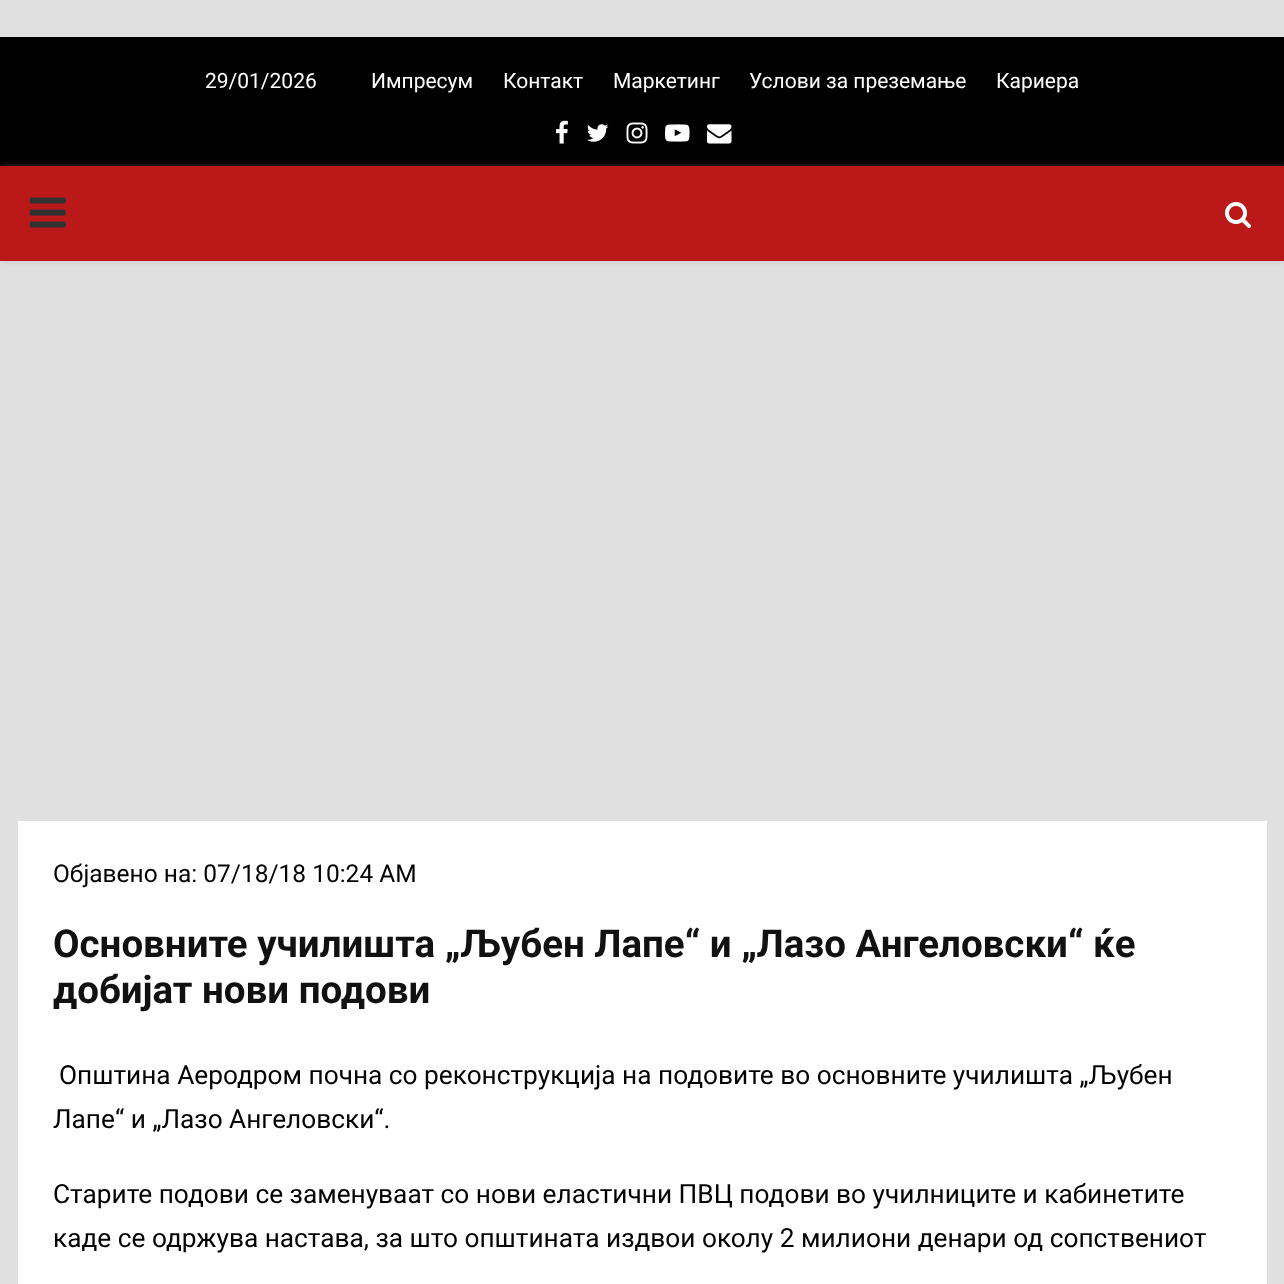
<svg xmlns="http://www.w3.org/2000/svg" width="1284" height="1284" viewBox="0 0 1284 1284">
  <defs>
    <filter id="blur1" x="-50%" y="-200%" width="200%" height="500%"><feGaussianBlur stdDeviation="4.5"/></filter>
  </defs>
  <rect width="100%" height="100%" fill="#e0e0e0"/>
  <rect x="0" y="37" width="1284" height="129" fill="#000000"/>
  <text x="205" y="88" font-family="Roboto" font-size="21" fill="#ffffff">29/01/2026</text>
  <text x="371" y="88" font-family="Roboto" font-size="21" fill="#ffffff">Импресум</text>
  <text x="503" y="88" font-family="Roboto" font-size="21" fill="#ffffff">Контакт</text>
  <text x="613" y="88" font-family="Roboto" font-size="21" fill="#ffffff">Маркетинг</text>
  <text x="749" y="88" font-family="Roboto" font-size="21" fill="#ffffff">Услови за преземање</text>
  <text x="996" y="88" font-family="Roboto" font-size="21" fill="#ffffff">Кариера</text>
  <image x="556" y="120" width="12" height="24" href="img1.png"/>
  <image x="587" y="124" width="22" height="18" href="img2.png"/>
  <image x="626" y="122" width="22" height="22" href="img3.png"/>
  <image x="665" y="124" width="25" height="18" href="img4.png"/>
  <image x="707" y="124" width="25" height="20" href="img5.png"/>
  <rect x="0" y="168" width="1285" height="95" fill="#bebebe" fill-opacity="0.46" filter="url(#blur1)"/>
  <rect x="0" y="166" width="1284" height="95" fill="#bb1919"/>
  <image x="29" y="197" width="37" height="31" href="img6.png"/>
  <image x="1225" y="202" width="26" height="26" href="img7.png"/>
  <rect x="18" y="821" width="1249" height="463" fill="#ffffff"/>
  <text x="53" y="882" font-family="Roboto" font-size="24.5" fill="#020202">Објавено на: 07/18/18 10:24 AM</text>
  <text x="53" y="957" font-family="Roboto" font-size="38.5" font-weight="bold" fill="#111111">Основните училишта „Љубен Лапе“ и „Лазо Ангеловски“ ќе</text>
  <text x="53" y="1003" font-family="Roboto" font-size="38.5" font-weight="bold" fill="#111111">добијат нови подови</text>
  <text x="59" y="1084" font-family="Roboto" font-size="26.25" fill="#020202">Општина Аеродром почна со реконструкција на подовите во основните училишта „Љубен</text>
  <text x="53" y="1128" font-family="Roboto" font-size="26.25" fill="#020202">Лапе“ и „Лазо Ангеловски“.</text>
  <text x="53" y="1203" font-family="Roboto" font-size="26.25" fill="#020202">Старите подови се заменуваат со нови еластични ПВЦ подови во училниците и кабинетите</text>
  <text x="53" y="1247" font-family="Roboto" font-size="26.25" fill="#020202">каде се одржува настава, за што општината издвои околу 2 милиони денари од сопствениот</text>
</svg>
